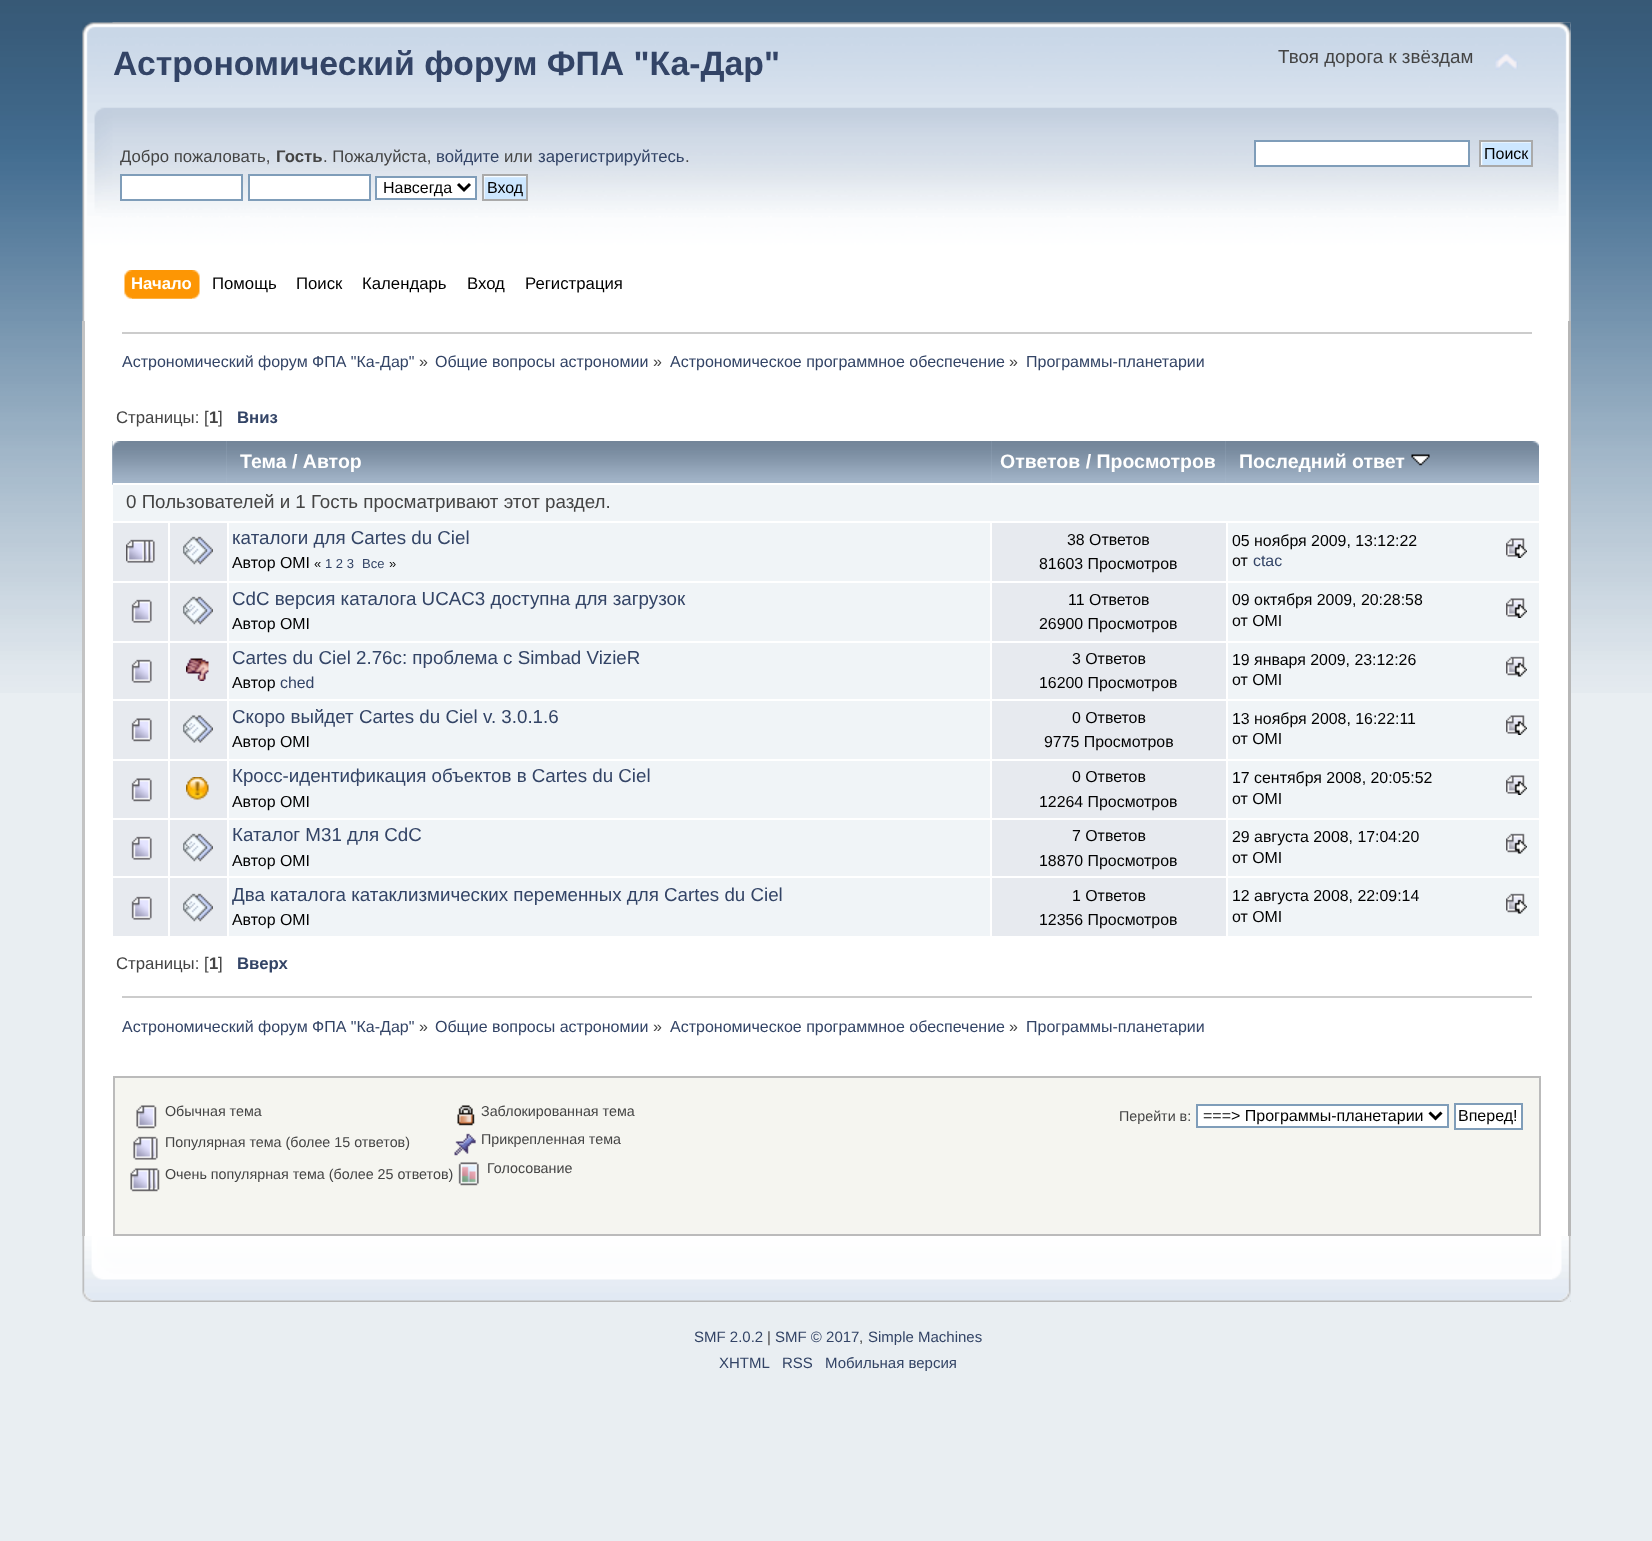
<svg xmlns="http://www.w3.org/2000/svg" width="1652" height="1541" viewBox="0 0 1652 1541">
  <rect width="100%" height="100%" fill="#e9eef2"/>
  <image x="0" y="0" width="1652" height="693" href="img1.png"/>
  <image x="82" y="22" width="1489" height="299" href="img2.png"/>
  <image x="112" y="22" width="1459" height="299" href="img3.png"/>
  <text x="113" y="75" font-family="Liberation Sans" font-size="33.75" font-weight="bold" fill="#334466">Астрономический форум ФПА "Ка-Дар"</text>
  <text x="1278" y="63" font-family="Liberation Sans" font-size="18.75" fill="#444444">Твоя дорога к звёздам</text>
  <image x="1495" y="53" width="23" height="17" href="img4.png"/>
  <text x="120" y="162" font-family="Liberation Sans" font-size="16.75" fill="#444444">Добро пожаловать,</text>
  <text x="276" y="162" font-family="Liberation Sans" font-size="16.75" font-weight="bold" fill="#444444">Гость</text>
  <text x="323" y="162" font-family="Liberation Sans" font-size="16.75" fill="#444444">. Пожалуйста,</text>
  <text x="436" y="162" font-family="Liberation Sans" font-size="16.75" fill="#334466">войдите</text>
  <text x="504" y="162" font-family="Liberation Sans" font-size="16.75" fill="#444444">или</text>
  <text x="538" y="162" font-family="Liberation Sans" font-size="16.75" fill="#334466">зарегистрируйтесь</text>
  <text x="685" y="162" font-family="Liberation Sans" font-size="16.75" fill="#444444">.</text>
  <rect x="121" y="175" width="121" height="25" fill="#ffffff" stroke="#7f9db9" stroke-width="2"/>
  <rect x="249" y="175" width="121" height="25" fill="#ffffff" stroke="#7f9db9" stroke-width="2"/>
  <rect x="376" y="177" width="100" height="22" fill="#ffffff" stroke="#7f9db9" stroke-width="2"/>
  <path d="M458 184L464 190L470 184" fill="none" stroke="#000000" stroke-width="3"/>
  <text x="383" y="193" font-family="Liberation Sans" font-size="16" fill="#000000">Навсегда</text>
  <image x="484" y="176" width="42" height="23" href="img5.png"/>
  <rect x="483" y="175" width="44" height="25" fill="none" stroke="#aaaaaa" stroke-width="2"/>
  <text x="487" y="193" font-family="Liberation Sans" font-size="16" fill="#000000">Вход</text>
  <rect x="1255" y="141" width="214" height="25" fill="#ffffff" stroke="#7f9db9" stroke-width="2"/>
  <image x="1481" y="142" width="50" height="23" href="img6.png"/>
  <rect x="1480" y="141" width="52" height="25" fill="none" stroke="#aaaaaa" stroke-width="2"/>
  <text x="1484" y="159" font-family="Liberation Sans" font-size="16" fill="#000000">Поиск</text>
  <image x="132" y="270" width="68" height="29" href="img7.png"/>
  <image x="124" y="270" width="68" height="29" href="img8.png"/>
  <text x="131" y="289" font-family="Liberation Sans" font-size="16.75" font-weight="bold" fill="#ffffff">Начало</text>
  <text x="212" y="289" font-family="Liberation Sans" font-size="16.75" fill="#000000">Помощь</text>
  <text x="296" y="289" font-family="Liberation Sans" font-size="16.75" fill="#000000">Поиск</text>
  <text x="362" y="289" font-family="Liberation Sans" font-size="16.75" fill="#000000">Календарь</text>
  <text x="467" y="289" font-family="Liberation Sans" font-size="16.75" fill="#000000">Вход</text>
  <text x="525" y="289" font-family="Liberation Sans" font-size="16.75" fill="#000000">Регистрация</text>
  <rect x="85" y="321" width="1483" height="915" fill="#ffffff"/>
  <rect x="82" y="321" width="3" height="915" fill="#c3c3c3"/>
  <rect x="1568" y="321" width="3" height="915" fill="#b7b7b7"/>
  <rect x="122" y="332" width="1410" height="2" fill="#cccccc"/>
  <text x="122" y="367" font-family="Liberation Sans" font-size="16" fill="#334466">Астрономический форум ФПА "Ка-Дар"</text>
  <text x="419" y="367" font-family="Liberation Sans" font-size="16" fill="#444444">»</text>
  <text x="435" y="367" font-family="Liberation Sans" font-size="16" fill="#334466">Общие вопросы астрономии</text>
  <text x="653" y="367" font-family="Liberation Sans" font-size="16" fill="#444444">»</text>
  <text x="670" y="367" font-family="Liberation Sans" font-size="16" fill="#334466">Астрономическое программное обеспечение</text>
  <text x="1009" y="367" font-family="Liberation Sans" font-size="16" fill="#444444">»</text>
  <text x="1026" y="367" font-family="Liberation Sans" font-size="16" fill="#334466">Программы-планетарии</text>
  <text x="116" y="423" font-family="Liberation Sans" font-size="16.75" fill="#444444">Страницы: [</text>
  <text x="209" y="423" font-family="Liberation Sans" font-size="16.75" font-weight="bold" fill="#444444">1</text>
  <text x="218" y="423" font-family="Liberation Sans" font-size="16.75" fill="#444444">]</text>
  <text x="237" y="423" font-family="Liberation Sans" font-size="16.75" font-weight="bold" fill="#334466">Вниз</text>
  <image x="112" y="441" width="115" height="44" href="img9.png"/>
  <rect x="113" y="483" width="114" height="2" fill="#ffffff"/>
  <image x="226" y="441" width="766" height="42" href="img10.png"/>
  <text x="240" y="468" font-family="Liberation Sans" font-size="19.5" font-weight="bold" fill="#ffffff">Тема / Автор</text>
  <image x="991" y="441" width="235" height="42" href="img11.png"/>
  <text x="1000" y="468" font-family="Liberation Sans" font-size="19.5" font-weight="bold" fill="#ffffff">Ответов / Просмотров</text>
  <image x="1225" y="441" width="314" height="42" href="img12.png"/>
  <text x="1239" y="468" font-family="Liberation Sans" font-size="19.5" font-weight="bold" fill="#ffffff">Последний ответ</text>
  <image x="1411" y="454" width="19" height="12" href="img13.png"/>
  <rect x="113" y="485" width="1426" height="36" fill="#f0f4f7"/>
  <text x="126" y="508" font-family="Liberation Sans" font-size="18.75" fill="#444444">0 Пользователей и 1 Гость просматривают этот раздел.</text>
  <rect x="113" y="523" width="55" height="58" fill="#e7eaef"/>
  <image x="126" y="539" width="29" height="24" href="img14.png"/>
  <rect x="170" y="523" width="57" height="58" fill="#e7eaef"/>
  <image x="183" y="536" width="30" height="29" href="img15.png"/>
  <rect x="229" y="523" width="761" height="58" fill="#f0f4f7"/>
  <text x="232" y="544" font-family="Liberation Sans" font-size="18.75" fill="#334466">каталоги для Cartes du Ciel</text>
  <text x="232" y="568" font-family="Liberation Sans" font-size="15.9" fill="#000000">Автор OMI</text>
  <text x="314" y="568" font-family="Liberation Sans" font-size="13" fill="#000000">«</text>
  <text x="325" y="568" font-family="Liberation Sans" font-size="13" fill="#334466">1 2 3</text>
  <text x="362" y="568" font-family="Liberation Sans" font-size="13" fill="#334466">Все</text>
  <text x="389" y="568" font-family="Liberation Sans" font-size="13" fill="#000000">»</text>
  <rect x="992" y="523" width="234" height="58" fill="#e7eaef"/>
  <text x="1067" y="545" font-family="Liberation Sans" font-size="15.9" fill="#000000">38 Ответов</text>
  <text x="1039" y="569" font-family="Liberation Sans" font-size="15.9" fill="#000000">81603 Просмотров</text>
  <rect x="1228" y="523" width="311" height="58" fill="#f0f4f7"/>
  <text x="1232" y="546" font-family="Liberation Sans" font-size="15.9" fill="#000000">05 ноября 2009, 13:12:22</text>
  <image x="1506" y="538" width="21" height="20" href="img16.png"/>
  <text x="1232" y="566" font-family="Liberation Sans" font-size="15.9" fill="#000000">от</text>
  <text x="1253" y="566" font-family="Liberation Sans" font-size="15.9" fill="#334466">ctac</text>
  <rect x="113" y="583" width="55" height="58" fill="#e7eaef"/>
  <image x="131" y="599" width="21" height="24" href="img17.png"/>
  <rect x="170" y="583" width="57" height="58" fill="#e7eaef"/>
  <image x="183" y="596" width="30" height="29" href="img15.png"/>
  <rect x="229" y="583" width="761" height="58" fill="#f0f4f7"/>
  <text x="232" y="605" font-family="Liberation Sans" font-size="18.75" fill="#334466">CdC версия каталога UCAC3 доступна для загрузок</text>
  <text x="232" y="629" font-family="Liberation Sans" font-size="15.9" fill="#000000">Автор OMI</text>
  <rect x="992" y="583" width="234" height="58" fill="#e7eaef"/>
  <text x="1068" y="605" font-family="Liberation Sans" font-size="15.9" fill="#000000">11 Ответов</text>
  <text x="1039" y="629" font-family="Liberation Sans" font-size="15.9" fill="#000000">26900 Просмотров</text>
  <rect x="1228" y="583" width="311" height="58" fill="#f0f4f7"/>
  <text x="1232" y="605" font-family="Liberation Sans" font-size="15.9" fill="#000000">09 октября 2009, 20:28:58</text>
  <image x="1506" y="598" width="21" height="20" href="img16.png"/>
  <text x="1232" y="626" font-family="Liberation Sans" font-size="15.9" fill="#000000">от OMI</text>
  <rect x="113" y="643" width="55" height="56" fill="#e7eaef"/>
  <image x="131" y="659" width="21" height="24" href="img17.png"/>
  <rect x="170" y="643" width="57" height="56" fill="#e7eaef"/>
  <image x="186" y="658" width="23" height="23" href="img18.png"/>
  <rect x="229" y="643" width="761" height="56" fill="#f0f4f7"/>
  <text x="232" y="664" font-family="Liberation Sans" font-size="18.75" fill="#334466">Cartes du Ciel 2.76c: проблема с Simbad VizieR</text>
  <text x="232" y="688" font-family="Liberation Sans" font-size="15.9" fill="#000000">Автор</text>
  <text x="280" y="688" font-family="Liberation Sans" font-size="15.9" fill="#334466">ched</text>
  <rect x="992" y="643" width="234" height="56" fill="#e7eaef"/>
  <text x="1072" y="664" font-family="Liberation Sans" font-size="15.9" fill="#000000">3 Ответов</text>
  <text x="1039" y="688" font-family="Liberation Sans" font-size="15.9" fill="#000000">16200 Просмотров</text>
  <rect x="1228" y="643" width="311" height="56" fill="#f0f4f7"/>
  <text x="1232" y="665" font-family="Liberation Sans" font-size="15.9" fill="#000000">19 января 2009, 23:12:26</text>
  <image x="1506" y="656" width="21" height="21" href="img19.png"/>
  <text x="1232" y="685" font-family="Liberation Sans" font-size="15.9" fill="#000000">от OMI</text>
  <rect x="113" y="701" width="55" height="58" fill="#e7eaef"/>
  <image x="131" y="718" width="21" height="24" href="img20.png"/>
  <rect x="170" y="701" width="57" height="58" fill="#e7eaef"/>
  <image x="183" y="715" width="30" height="28" href="img21.png"/>
  <rect x="229" y="701" width="761" height="58" fill="#f0f4f7"/>
  <text x="232" y="723" font-family="Liberation Sans" font-size="18.75" fill="#334466">Cкоро выйдет Cartes du Ciel v. 3.0.1.6</text>
  <text x="232" y="747" font-family="Liberation Sans" font-size="15.9" fill="#000000">Автор OMI</text>
  <rect x="992" y="701" width="234" height="58" fill="#e7eaef"/>
  <text x="1072" y="723" font-family="Liberation Sans" font-size="15.9" fill="#000000">0 Ответов</text>
  <text x="1044" y="747" font-family="Liberation Sans" font-size="15.9" fill="#000000">9775 Просмотров</text>
  <rect x="1228" y="701" width="311" height="58" fill="#f0f4f7"/>
  <text x="1232" y="724" font-family="Liberation Sans" font-size="15.9" fill="#000000">13 ноября 2008, 16:22:11</text>
  <image x="1506" y="715" width="21" height="20" href="img16.png"/>
  <text x="1232" y="744" font-family="Liberation Sans" font-size="15.9" fill="#000000">от OMI</text>
  <rect x="113" y="761" width="55" height="57" fill="#e7eaef"/>
  <image x="131" y="778" width="21" height="24" href="img20.png"/>
  <rect x="170" y="761" width="57" height="57" fill="#e7eaef"/>
  <image x="186" y="777" width="23" height="23" href="img22.png"/>
  <rect x="229" y="761" width="761" height="57" fill="#f0f4f7"/>
  <text x="232" y="782" font-family="Liberation Sans" font-size="18.75" fill="#334466">Кросс-идентификация объектов в Cartes du Ciel</text>
  <text x="232" y="807" font-family="Liberation Sans" font-size="15.9" fill="#000000">Автор OMI</text>
  <rect x="992" y="761" width="234" height="57" fill="#e7eaef"/>
  <text x="1072" y="782" font-family="Liberation Sans" font-size="15.9" fill="#000000">0 Ответов</text>
  <text x="1039" y="807" font-family="Liberation Sans" font-size="15.9" fill="#000000">12264 Просмотров</text>
  <rect x="1228" y="761" width="311" height="57" fill="#f0f4f7"/>
  <text x="1232" y="783" font-family="Liberation Sans" font-size="15.9" fill="#000000">17 сентября 2008, 20:05:52</text>
  <image x="1506" y="775" width="21" height="20" href="img16.png"/>
  <text x="1232" y="804" font-family="Liberation Sans" font-size="15.9" fill="#000000">от OMI</text>
  <rect x="113" y="820" width="55" height="56" fill="#e7eaef"/>
  <image x="131" y="836" width="21" height="24" href="img17.png"/>
  <rect x="170" y="820" width="57" height="56" fill="#e7eaef"/>
  <image x="183" y="833" width="30" height="29" href="img15.png"/>
  <rect x="229" y="820" width="761" height="56" fill="#f0f4f7"/>
  <text x="232" y="841" font-family="Liberation Sans" font-size="18.75" fill="#334466">Каталог М31 для CdC</text>
  <text x="232" y="866" font-family="Liberation Sans" font-size="15.9" fill="#000000">Автор OMI</text>
  <rect x="992" y="820" width="234" height="56" fill="#e7eaef"/>
  <text x="1072" y="841" font-family="Liberation Sans" font-size="15.9" fill="#000000">7 Ответов</text>
  <text x="1039" y="866" font-family="Liberation Sans" font-size="15.9" fill="#000000">18870 Просмотров</text>
  <rect x="1228" y="820" width="311" height="56" fill="#f0f4f7"/>
  <text x="1232" y="842" font-family="Liberation Sans" font-size="15.9" fill="#000000">29 августа 2008, 17:04:20</text>
  <image x="1506" y="833" width="21" height="21" href="img19.png"/>
  <text x="1232" y="863" font-family="Liberation Sans" font-size="15.9" fill="#000000">от OMI</text>
  <rect x="113" y="878" width="55" height="58" fill="#e7eaef"/>
  <image x="131" y="896" width="21" height="24" href="img17.png"/>
  <rect x="170" y="878" width="57" height="58" fill="#e7eaef"/>
  <image x="183" y="893" width="30" height="29" href="img15.png"/>
  <rect x="229" y="878" width="761" height="58" fill="#f0f4f7"/>
  <text x="232" y="901" font-family="Liberation Sans" font-size="18.75" fill="#334466">Два каталога катаклизмических переменных для Cartes du Ciel</text>
  <text x="232" y="925" font-family="Liberation Sans" font-size="15.9" fill="#000000">Автор OMI</text>
  <rect x="992" y="878" width="234" height="58" fill="#e7eaef"/>
  <text x="1072" y="901" font-family="Liberation Sans" font-size="15.9" fill="#000000">1 Ответов</text>
  <text x="1039" y="925" font-family="Liberation Sans" font-size="15.9" fill="#000000">12356 Просмотров</text>
  <rect x="1228" y="878" width="311" height="58" fill="#f0f4f7"/>
  <text x="1232" y="901" font-family="Liberation Sans" font-size="15.9" fill="#000000">12 августа 2008, 22:09:14</text>
  <image x="1506" y="893" width="21" height="21" href="img19.png"/>
  <text x="1232" y="922" font-family="Liberation Sans" font-size="15.9" fill="#000000">от OMI</text>
  <text x="116" y="969" font-family="Liberation Sans" font-size="16.75" fill="#444444">Страницы: [</text>
  <text x="209" y="969" font-family="Liberation Sans" font-size="16.75" font-weight="bold" fill="#444444">1</text>
  <text x="218" y="969" font-family="Liberation Sans" font-size="16.75" fill="#444444">]</text>
  <text x="237" y="969" font-family="Liberation Sans" font-size="16.75" font-weight="bold" fill="#334466">Вверх</text>
  <rect x="122" y="996" width="1410" height="2" fill="#cccccc"/>
  <text x="122" y="1032" font-family="Liberation Sans" font-size="16" fill="#334466">Астрономический форум ФПА "Ка-Дар"</text>
  <text x="419" y="1032" font-family="Liberation Sans" font-size="16" fill="#444444">»</text>
  <text x="435" y="1032" font-family="Liberation Sans" font-size="16" fill="#334466">Общие вопросы астрономии</text>
  <text x="653" y="1032" font-family="Liberation Sans" font-size="16" fill="#444444">»</text>
  <text x="670" y="1032" font-family="Liberation Sans" font-size="16" fill="#334466">Астрономическое программное обеспечение</text>
  <text x="1009" y="1032" font-family="Liberation Sans" font-size="16" fill="#444444">»</text>
  <text x="1026" y="1032" font-family="Liberation Sans" font-size="16" fill="#334466">Программы-планетарии</text>
  <rect x="114" y="1077" width="1426" height="158" fill="#f5f5f0" stroke="#bbbbbb" stroke-width="2"/>
  <image x="136" y="1105" width="21" height="24" href="img23.png"/>
  <text x="165" y="1116" font-family="Liberation Sans" font-size="14.3" fill="#444444">Обычная тема</text>
  <image x="133" y="1136" width="25" height="24" href="img24.png"/>
  <text x="165" y="1147" font-family="Liberation Sans" font-size="14.3" fill="#444444">Популярная тема (более 15 ответов)</text>
  <image x="130" y="1168" width="30" height="24" href="img25.png"/>
  <text x="165" y="1179" font-family="Liberation Sans" font-size="14.3" fill="#444444">Очень популярная тема (более 25 ответов)</text>
  <image x="457" y="1105" width="18" height="21" href="img26.png"/>
  <text x="481" y="1116" font-family="Liberation Sans" font-size="14.3" fill="#444444">Заблокированная тема</text>
  <image x="454" y="1133" width="22" height="23" href="img27.png"/>
  <text x="481" y="1144" font-family="Liberation Sans" font-size="14.3" fill="#444444">Прикрепленная тема</text>
  <image x="458" y="1162" width="21" height="24" href="img28.png"/>
  <text x="487" y="1173" font-family="Liberation Sans" font-size="14.3" fill="#444444">Голосование</text>
  <text x="1119" y="1121" font-family="Liberation Sans" font-size="14.3" fill="#444444">Перейти в:</text>
  <rect x="1197" y="1105" width="251" height="22" fill="#ffffff" stroke="#7f9db9" stroke-width="2"/>
  <path d="M1429.5 1112.5L1435.5 1118.5L1441.5 1112.5" fill="none" stroke="#000000" stroke-width="3"/>
  <text x="1203" y="1121" font-family="Liberation Sans" font-size="16" fill="#000000">===&gt; Программы-планетарии</text>
  <rect x="1455" y="1104" width="67" height="25" fill="#ffffff" stroke="#7f9db9" stroke-width="2"/>
  <text x="1458" y="1121" font-family="Liberation Sans" font-size="16" fill="#000000">Вперед!</text>
  <image x="82" y="1236" width="1489" height="66" href="img29.png"/>
  <image x="1552" y="1236" width="19" height="66" href="img30.png"/>
  <text x="694" y="1342" font-family="Liberation Sans" font-size="15" fill="#334466">SMF 2.0.2</text>
  <text x="767" y="1342" font-family="Liberation Sans" font-size="15" fill="#444444">|</text>
  <text x="775" y="1342" font-family="Liberation Sans" font-size="15" fill="#334466">SMF © 2017</text>
  <text x="859" y="1342" font-family="Liberation Sans" font-size="15" fill="#444444">,</text>
  <text x="868" y="1342" font-family="Liberation Sans" font-size="15" fill="#334466">Simple Machines</text>
  <text x="719" y="1368" font-family="Liberation Sans" font-size="15" fill="#334466">XHTML</text>
  <text x="782" y="1368" font-family="Liberation Sans" font-size="15" fill="#334466">RSS</text>
  <text x="825" y="1368" font-family="Liberation Sans" font-size="15" fill="#334466">Мобильная версия</text>
</svg>
